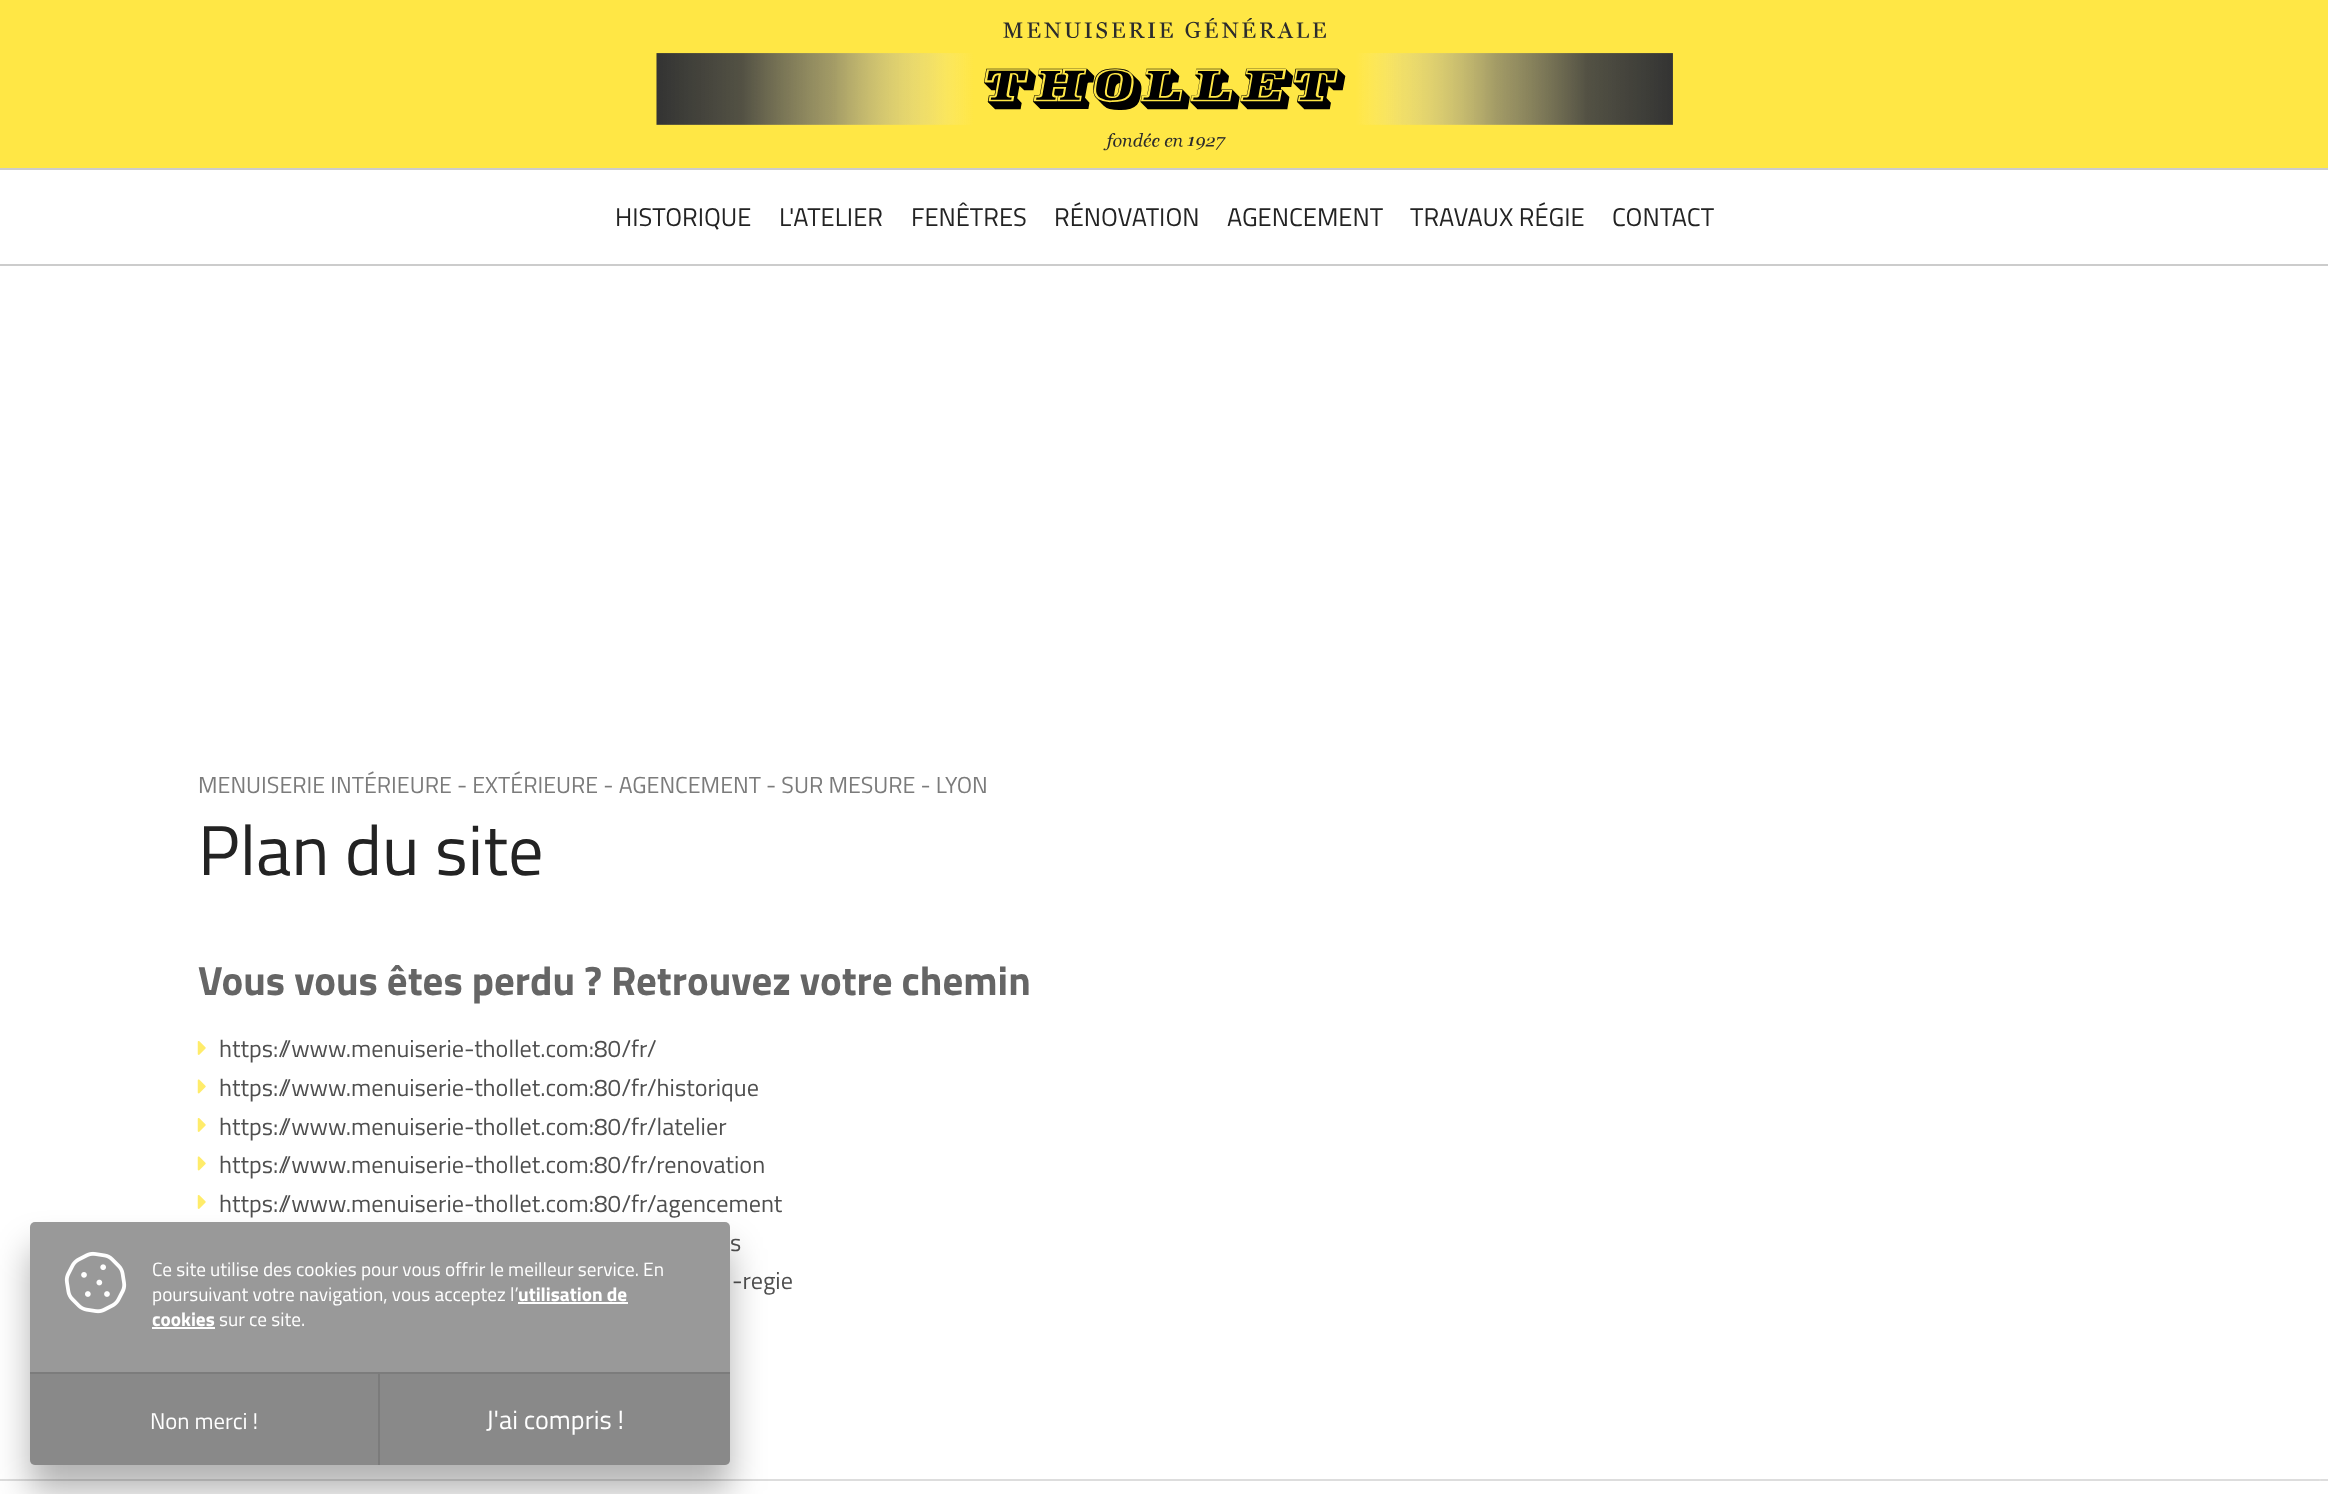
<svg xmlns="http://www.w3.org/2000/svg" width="2328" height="1494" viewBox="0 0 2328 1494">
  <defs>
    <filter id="blur1" x="-50%" y="-200%" width="200%" height="500%"><feGaussianBlur stdDeviation="17.5"/></filter>
  </defs>
  <rect width="100%" height="100%" fill="#ffffff"/>
  <rect x="0" y="0" width="2328" height="168" fill="#ffe745"/>
  <image x="656" y="18" width="1017" height="133" href="img1.png"/>
  <rect x="0" y="168" width="2328" height="2" fill="#cccccc"/>
  <rect x="0" y="264" width="2328" height="2" fill="#cccccc"/>
  <text x="615" y="226" font-family="Titillium Web" font-size="25.5" fill="#232323">HISTORIQUE</text>
  <text x="779" y="226" font-family="Titillium Web" font-size="25.5" fill="#232323">L'ATELIER</text>
  <text x="911" y="226" font-family="Titillium Web" font-size="25.5" fill="#232323">FENÊTRES</text>
  <text x="1054" y="226" font-family="Titillium Web" font-size="25.5" fill="#232323">RÉNOVATION</text>
  <text x="1227" y="226" font-family="Titillium Web" font-size="25.5" fill="#232323">AGENCEMENT</text>
  <text x="1410" y="226" font-family="Titillium Web" font-size="25.5" fill="#232323">TRAVAUX RÉGIE</text>
  <text x="1612" y="226" font-family="Titillium Web" font-size="25.5" fill="#232323">CONTACT</text>
  <text x="198" y="793" font-family="Titillium Web" font-size="23.25" fill="#7b7b7b">MENUISERIE INTÉRIEURE - EXTÉRIEURE - AGENCEMENT - SUR MESURE - LYON</text>
  <text x="198" y="875" font-family="Titillium Web" font-size="70.5" fill="#232323">Plan du site</text>
  <text x="198" y="995" font-family="Titillium Web" font-size="40.9" font-weight="bold" fill="#656565">Vous vous êtes perdu ? Retrouvez votre chemin</text>
  <image x="197" y="1041" width="9" height="14" href="img2.png"/>
  <text x="219" y="1057" font-family="Titillium Web" font-size="24.2" fill="#4f4f4f">https://www.menuiserie-thollet.com:80/fr/</text>
  <image x="197" y="1079" width="9" height="15" href="img3.png"/>
  <text x="219" y="1096" font-family="Titillium Web" font-size="24.2" fill="#4f4f4f">https://www.menuiserie-thollet.com:80/fr/historique</text>
  <image x="197" y="1118" width="9" height="14" href="img2.png"/>
  <text x="219" y="1135" font-family="Titillium Web" font-size="24.2" fill="#4f4f4f">https://www.menuiserie-thollet.com:80/fr/latelier</text>
  <image x="197" y="1156" width="9" height="15" href="img3.png"/>
  <text x="219" y="1173" font-family="Titillium Web" font-size="24.2" fill="#4f4f4f">https://www.menuiserie-thollet.com:80/fr/renovation</text>
  <image x="197" y="1195" width="9" height="14" href="img2.png"/>
  <text x="219" y="1212" font-family="Titillium Web" font-size="24.2" fill="#4f4f4f">https://www.menuiserie-thollet.com:80/fr/agencement</text>
  <text x="730" y="1251" font-family="Titillium Web" font-size="24.2" fill="#4f4f4f">s</text>
  <text x="732" y="1289" font-family="Titillium Web" font-size="24.2" fill="#4f4f4f">-regie</text>
  <rect x="0" y="1479" width="2328" height="2" fill="#dddddd"/>
  <rect x="2319" y="1479" width="2" height="2" fill="#e0e0e0"/>
  <rect x="30" y="1248" width="700" height="243" rx="5" fill="#000000" fill-opacity="0.3" filter="url(#blur1)"/>
  <rect x="30" y="1222" width="700" height="243" rx="5" fill="#999999"/>
  <image x="64" y="1251" width="63" height="63" href="img4.png"/>
  <text x="152" y="1276" font-family="Titillium Web" font-size="19.25" fill="#ffffff">Ce site utilise des cookies pour vous offrir le meilleur service. En</text>
  <text x="152" y="1301" font-family="Titillium Web" font-size="19.25" fill="#ffffff">poursuivant votre navigation, vous acceptez l’</text>
  <text x="518" y="1301" font-family="Titillium Web" font-size="19.25" font-weight="bold" fill="#ffffff">utilisation de</text>
  <rect x="518" y="1302" width="110" height="2" fill="#ffffff"/>
  <text x="152" y="1326" font-family="Titillium Web" font-size="19.25" font-weight="bold" fill="#ffffff">cookies</text>
  <rect x="152" y="1327" width="63" height="2" fill="#ffffff"/>
  <text x="219" y="1326" font-family="Titillium Web" font-size="19.25" fill="#ffffff">sur ce site.</text>
  <path d="M30 1372H378V1465H35C32 1465 30 1463 30 1460Z" fill="#000000" fill-opacity="0.1"/>
  <rect x="30" y="1372" width="348" height="2" fill="#7c7c7c"/>
  <text x="150" y="1429" font-family="Titillium Web" font-size="22.75" fill="#ffffff">Non merci !</text>
  <path d="M378 1372H730V1460C730 1463 728 1465 725 1465H378Z" fill="#000000" fill-opacity="0.1"/>
  <path d="M378 1372H730V1374H380Z" fill="#7c7c7c"/>
  <path d="M378 1465V1372L380 1374V1465Z" fill="#000000" fill-opacity="0.1"/>
  <text x="486" y="1429" font-family="Titillium Web" font-size="26.25" fill="#ffffff">J'ai compris !</text>
</svg>
